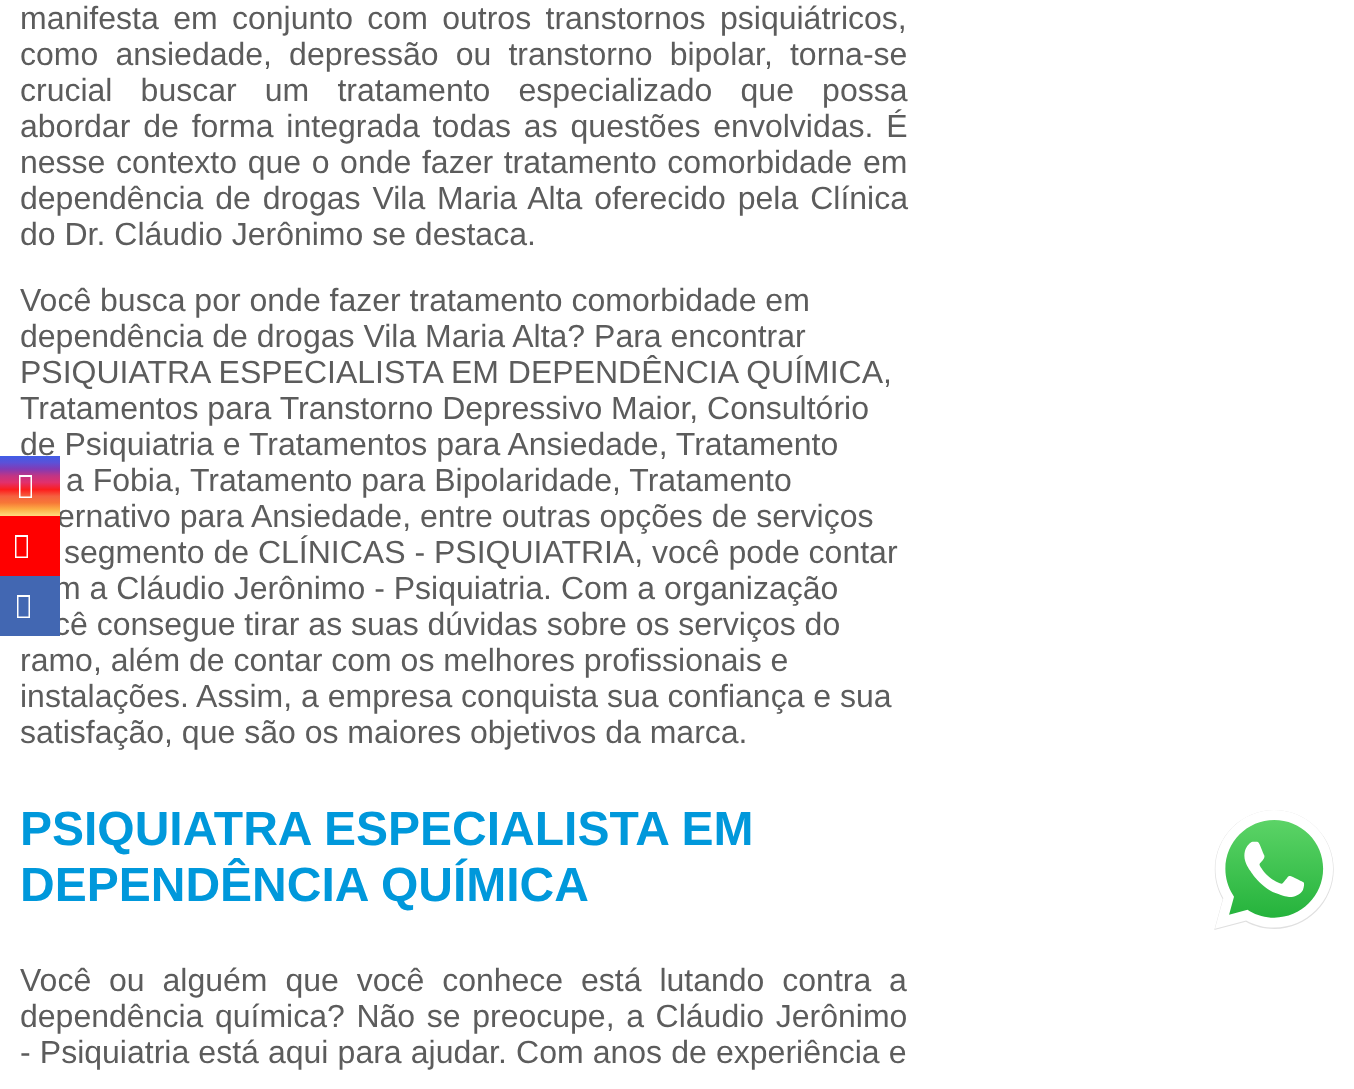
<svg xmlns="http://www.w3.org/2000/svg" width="1354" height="1089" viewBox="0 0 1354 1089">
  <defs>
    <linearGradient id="g1" gradientUnits="userSpaceOnUse" x1="30" y1="456" x2="30" y2="516"><stop offset="0" stop-color="#405de6"/><stop offset="0.11" stop-color="#5b51d8"/><stop offset="0.22" stop-color="#833ab4"/><stop offset="0.33" stop-color="#c13584"/><stop offset="0.44" stop-color="#e1306c"/><stop offset="0.56" stop-color="#fd1d1d"/><stop offset="0.67" stop-color="#f56040"/><stop offset="0.78" stop-color="#f77737"/><stop offset="0.89" stop-color="#fcaf45"/><stop offset="1" stop-color="#ffdc80"/></linearGradient>
  </defs>
  <rect width="100%" height="100%" fill="#ffffff"/>
  <text x="20" y="29" word-spacing="5.5" font-family="Liberation Sans" font-size="32" fill="#5c5c5c">manifesta em conjunto com outros transtornos psiquiátricos,</text>
  <text x="20" y="65" word-spacing="8.25" font-family="Liberation Sans" font-size="32" fill="#5c5c5c">como ansiedade, depressão ou transtorno bipolar, torna-se</text>
  <text x="20" y="101" word-spacing="19.25" font-family="Liberation Sans" font-size="32" fill="#5c5c5c">crucial buscar um tratamento especializado que possa</text>
  <text x="20" y="137" word-spacing="4" font-family="Liberation Sans" font-size="32" fill="#5c5c5c">abordar de forma integrada todas as questões envolvidas. É</text>
  <text x="20" y="173" word-spacing="1.75" font-family="Liberation Sans" font-size="32" fill="#5c5c5c">nesse contexto que o onde fazer tratamento comorbidade em</text>
  <text x="20" y="209" word-spacing="3" font-family="Liberation Sans" font-size="32" fill="#5c5c5c">dependência de drogas Vila Maria Alta oferecido pela Clínica</text>
  <text x="20" y="245" font-family="Liberation Sans" font-size="32" fill="#5c5c5c">do Dr. Cláudio Jerônimo se destaca.</text>
  <text x="20" y="311" font-family="Liberation Sans" font-size="32" fill="#5c5c5c">Você busca por onde fazer tratamento comorbidade em</text>
  <text x="20" y="347" font-family="Liberation Sans" font-size="32" fill="#5c5c5c">dependência de drogas Vila Maria Alta? Para encontrar</text>
  <text x="20" y="383" font-family="Liberation Sans" font-size="32" fill="#5c5c5c">PSIQUIATRA ESPECIALISTA EM DEPENDÊNCIA QUÍMICA,</text>
  <text x="20" y="419" font-family="Liberation Sans" font-size="32" fill="#5c5c5c">Tratamentos para Transtorno Depressivo Maior, Consultório</text>
  <text x="20" y="455" font-family="Liberation Sans" font-size="32" fill="#5c5c5c">de Psiquiatria e Tratamentos para Ansiedade, Tratamento</text>
  <text x="66" y="491" font-family="Liberation Sans" font-size="32" fill="#5c5c5c">a Fobia, Tratamento para Bipolaridade, Tratamento</text>
  <text x="57" y="527" font-family="Liberation Sans" font-size="32" fill="#5c5c5c">ernativo para Ansiedade, entre outras opções de serviços</text>
  <text x="64" y="563" font-family="Liberation Sans" font-size="32" fill="#5c5c5c">segmento de CLÍNICAS - PSIQUIATRIA, você pode contar</text>
  <text x="54" y="599" font-family="Liberation Sans" font-size="32" fill="#5c5c5c">m a Cláudio Jerônimo - Psiquiatria. Com a organização</text>
  <text x="54" y="635" font-family="Liberation Sans" font-size="32" fill="#5c5c5c">cê consegue tirar as suas dúvidas sobre os serviços do</text>
  <text x="20" y="671" font-family="Liberation Sans" font-size="32" fill="#5c5c5c">ramo, além de contar com os melhores profissionais e</text>
  <text x="20" y="707" font-family="Liberation Sans" font-size="32" fill="#5c5c5c">instalações. Assim, a empresa conquista sua confiança e sua</text>
  <text x="20" y="743" font-family="Liberation Sans" font-size="32" fill="#5c5c5c">satisfação, que são os maiores objetivos da marca.</text>
  <text x="20" y="845" font-family="Liberation Sans" font-size="48" font-weight="bold" fill="#0098db">PSIQUIATRA ESPECIALISTA EM</text>
  <text x="20" y="901" font-family="Liberation Sans" font-size="48" font-weight="bold" fill="#0098db">DEPENDÊNCIA QUÍMICA</text>
  <text x="20" y="991" word-spacing="9" font-family="Liberation Sans" font-size="32" fill="#5c5c5c">Você ou alguém que você conhece está lutando contra a</text>
  <text x="20" y="1027" word-spacing="2.75" font-family="Liberation Sans" font-size="32" fill="#5c5c5c">dependência química? Não se preocupe, a Cláudio Jerônimo</text>
  <text x="20" y="1063" word-spacing="0.25" font-family="Liberation Sans" font-size="32" fill="#5c5c5c">- Psiquiatria está aqui para ajudar. Com anos de experiência e</text>
  <rect x="0" y="456" width="60" height="60" fill="url(#g1)"/>
  <path d="M19 498V475H32V498ZM20.5 496.5H30.5V477H20.5Z" fill="#ffffff"/>
  <rect x="0" y="516" width="60" height="60" fill="#ff0000"/>
  <path d="M15 558V535H28V558ZM16.5 556.5H26.5V537H16.5Z" fill="#ffffff"/>
  <rect x="0" y="576" width="60" height="60" fill="#4267b2"/>
  <path d="M17 618V595H30V618ZM18.5 616.5H28.5V597H18.5Z" fill="#ffffff"/>
  <image x="1214" y="810" width="120" height="120" href="img1.png"/>
</svg>
